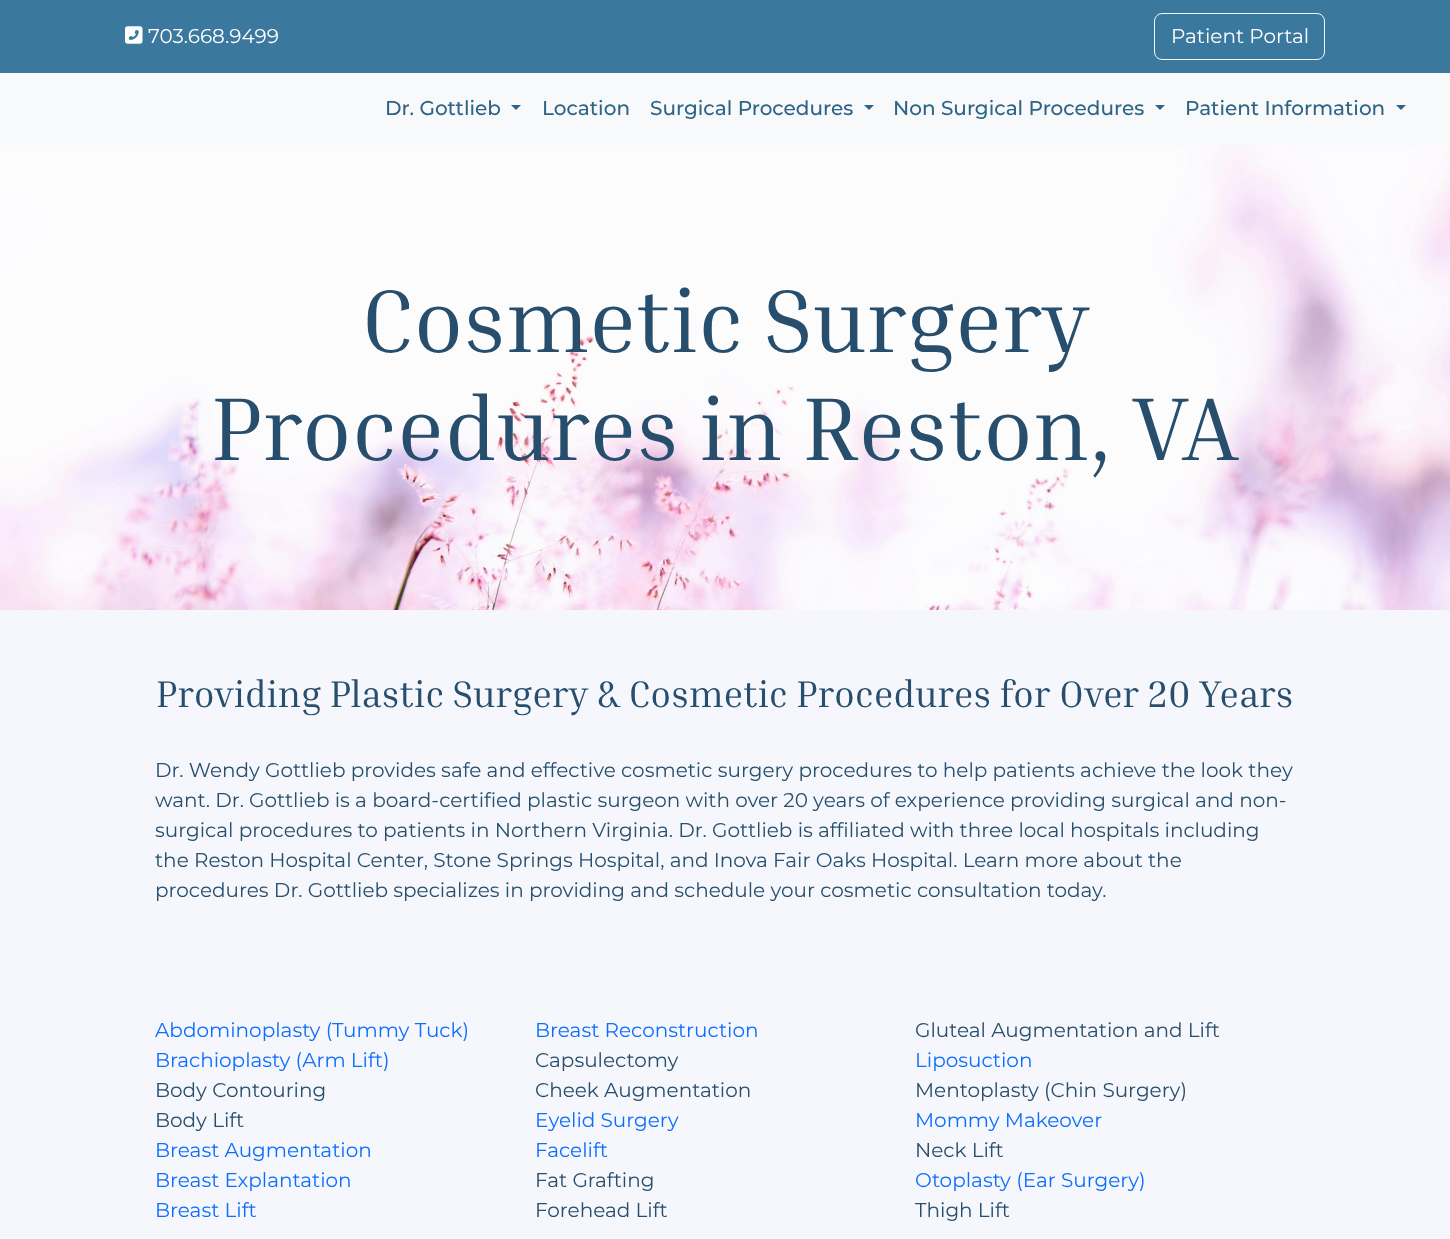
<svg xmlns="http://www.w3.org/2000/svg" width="1450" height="1239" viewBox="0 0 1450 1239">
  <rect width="100%" height="100%" fill="#f5f7fc"/>
  <rect x="0" y="0" width="1450" height="73" fill="#3b789e"/>
  <image x="125" y="26" width="18" height="18" href="img1.png"/>
  <text x="148" y="43" font-family="Montserrat" font-size="20" fill="#ffffff">703.668.9499</text>
  <rect x="1154.5" y="13.5" width="170" height="46" rx="7.5" fill="none" stroke="#f8f9fa"/>
  <text x="1171" y="43" font-family="Montserrat" font-size="20" fill="#ffffff">Patient Portal</text>
  <rect x="0" y="73" width="1450" height="72" fill="#f8f9fa"/>
  <text x="385" y="115" font-family="Montserrat" font-size="20" font-weight="500" fill="#2e6486">Dr. Gottlieb</text>
  <path d="M511 105H521L516 110Z" fill="#2e6486"/>
  <text x="542" y="115" font-family="Montserrat" font-size="20" font-weight="500" fill="#2e6486">Location</text>
  <text x="650" y="115" font-family="Montserrat" font-size="20" font-weight="500" fill="#2e6486">Surgical Procedures</text>
  <path d="M864 105H874L869 110Z" fill="#2e6486"/>
  <text x="893" y="115" font-family="Montserrat" font-size="20" font-weight="500" fill="#2e6486">Non Surgical Procedures</text>
  <path d="M1155 105H1165L1160 110Z" fill="#2e6486"/>
  <text x="1185" y="115" font-family="Montserrat" font-size="20" font-weight="500" fill="#2e6486">Patient Information</text>
  <path d="M1396 105H1406L1401 110Z" fill="#2e6486"/>
  <image x="0" y="145" width="1450" height="465" href="img2.png"/>
  <text x="361" y="352" font-family="Inria Serif" font-size="90" fill="#274e6d">Cosmetic Surgery</text>
  <text x="211" y="460" font-family="Inria Serif" font-size="90" fill="#274e6d">Procedures in Reston, VA</text>
  <text x="156" y="707" font-family="Inria Serif" font-size="37.5" fill="#274e6d">Providing Plastic Surgery &amp; Cosmetic Procedures for Over 20 Years</text>
  <text x="155" y="777" font-family="Montserrat" font-size="20" fill="#274e6d">Dr. Wendy Gottlieb provides safe and effective cosmetic surgery procedures to help patients achieve the look they</text>
  <text x="155" y="807" font-family="Montserrat" font-size="20" fill="#274e6d">want. Dr. Gottlieb is a board-certified plastic surgeon with over 20 years of experience providing surgical and non-</text>
  <text x="155" y="837" font-family="Montserrat" font-size="20" fill="#274e6d">surgical procedures to patients in Northern Virginia. Dr. Gottlieb is affiliated with three local hospitals including</text>
  <text x="155" y="867" font-family="Montserrat" font-size="20" fill="#274e6d">the Reston Hospital Center, Stone Springs Hospital, and Inova Fair Oaks Hospital. Learn more about the</text>
  <text x="155" y="897" font-family="Montserrat" font-size="20" fill="#274e6d">procedures Dr. Gottlieb specializes in providing and schedule your cosmetic consultation today.</text>
  <text x="155" y="1037" font-family="Montserrat" font-size="20" fill="#0d6efd">Abdominoplasty (Tummy Tuck)</text>
  <text x="155" y="1067" font-family="Montserrat" font-size="20" fill="#0d6efd">Brachioplasty (Arm Lift)</text>
  <text x="155" y="1097" font-family="Montserrat" font-size="20" fill="#274e6d">Body Contouring</text>
  <text x="155" y="1127" font-family="Montserrat" font-size="20" fill="#274e6d">Body Lift</text>
  <text x="155" y="1157" font-family="Montserrat" font-size="20" fill="#0d6efd">Breast Augmentation</text>
  <text x="155" y="1187" font-family="Montserrat" font-size="20" fill="#0d6efd">Breast Explantation</text>
  <text x="155" y="1217" font-family="Montserrat" font-size="20" fill="#0d6efd">Breast Lift</text>
  <text x="535" y="1037" font-family="Montserrat" font-size="20" fill="#0d6efd">Breast Reconstruction</text>
  <text x="535" y="1067" font-family="Montserrat" font-size="20" fill="#274e6d">Capsulectomy</text>
  <text x="535" y="1097" font-family="Montserrat" font-size="20" fill="#274e6d">Cheek Augmentation</text>
  <text x="535" y="1127" font-family="Montserrat" font-size="20" fill="#0d6efd">Eyelid Surgery</text>
  <text x="535" y="1157" font-family="Montserrat" font-size="20" fill="#0d6efd">Facelift</text>
  <text x="535" y="1187" font-family="Montserrat" font-size="20" fill="#274e6d">Fat Grafting</text>
  <text x="535" y="1217" font-family="Montserrat" font-size="20" fill="#274e6d">Forehead Lift</text>
  <text x="915" y="1037" font-family="Montserrat" font-size="20" fill="#274e6d">Gluteal Augmentation and Lift</text>
  <text x="915" y="1067" font-family="Montserrat" font-size="20" fill="#0d6efd">Liposuction</text>
  <text x="915" y="1097" font-family="Montserrat" font-size="20" fill="#274e6d">Mentoplasty (Chin Surgery)</text>
  <text x="915" y="1127" font-family="Montserrat" font-size="20" fill="#0d6efd">Mommy Makeover</text>
  <text x="915" y="1157" font-family="Montserrat" font-size="20" fill="#274e6d">Neck Lift</text>
  <text x="915" y="1187" font-family="Montserrat" font-size="20" fill="#0d6efd">Otoplasty (Ear Surgery)</text>
  <text x="915" y="1217" font-family="Montserrat" font-size="20" fill="#274e6d">Thigh Lift</text>
</svg>
